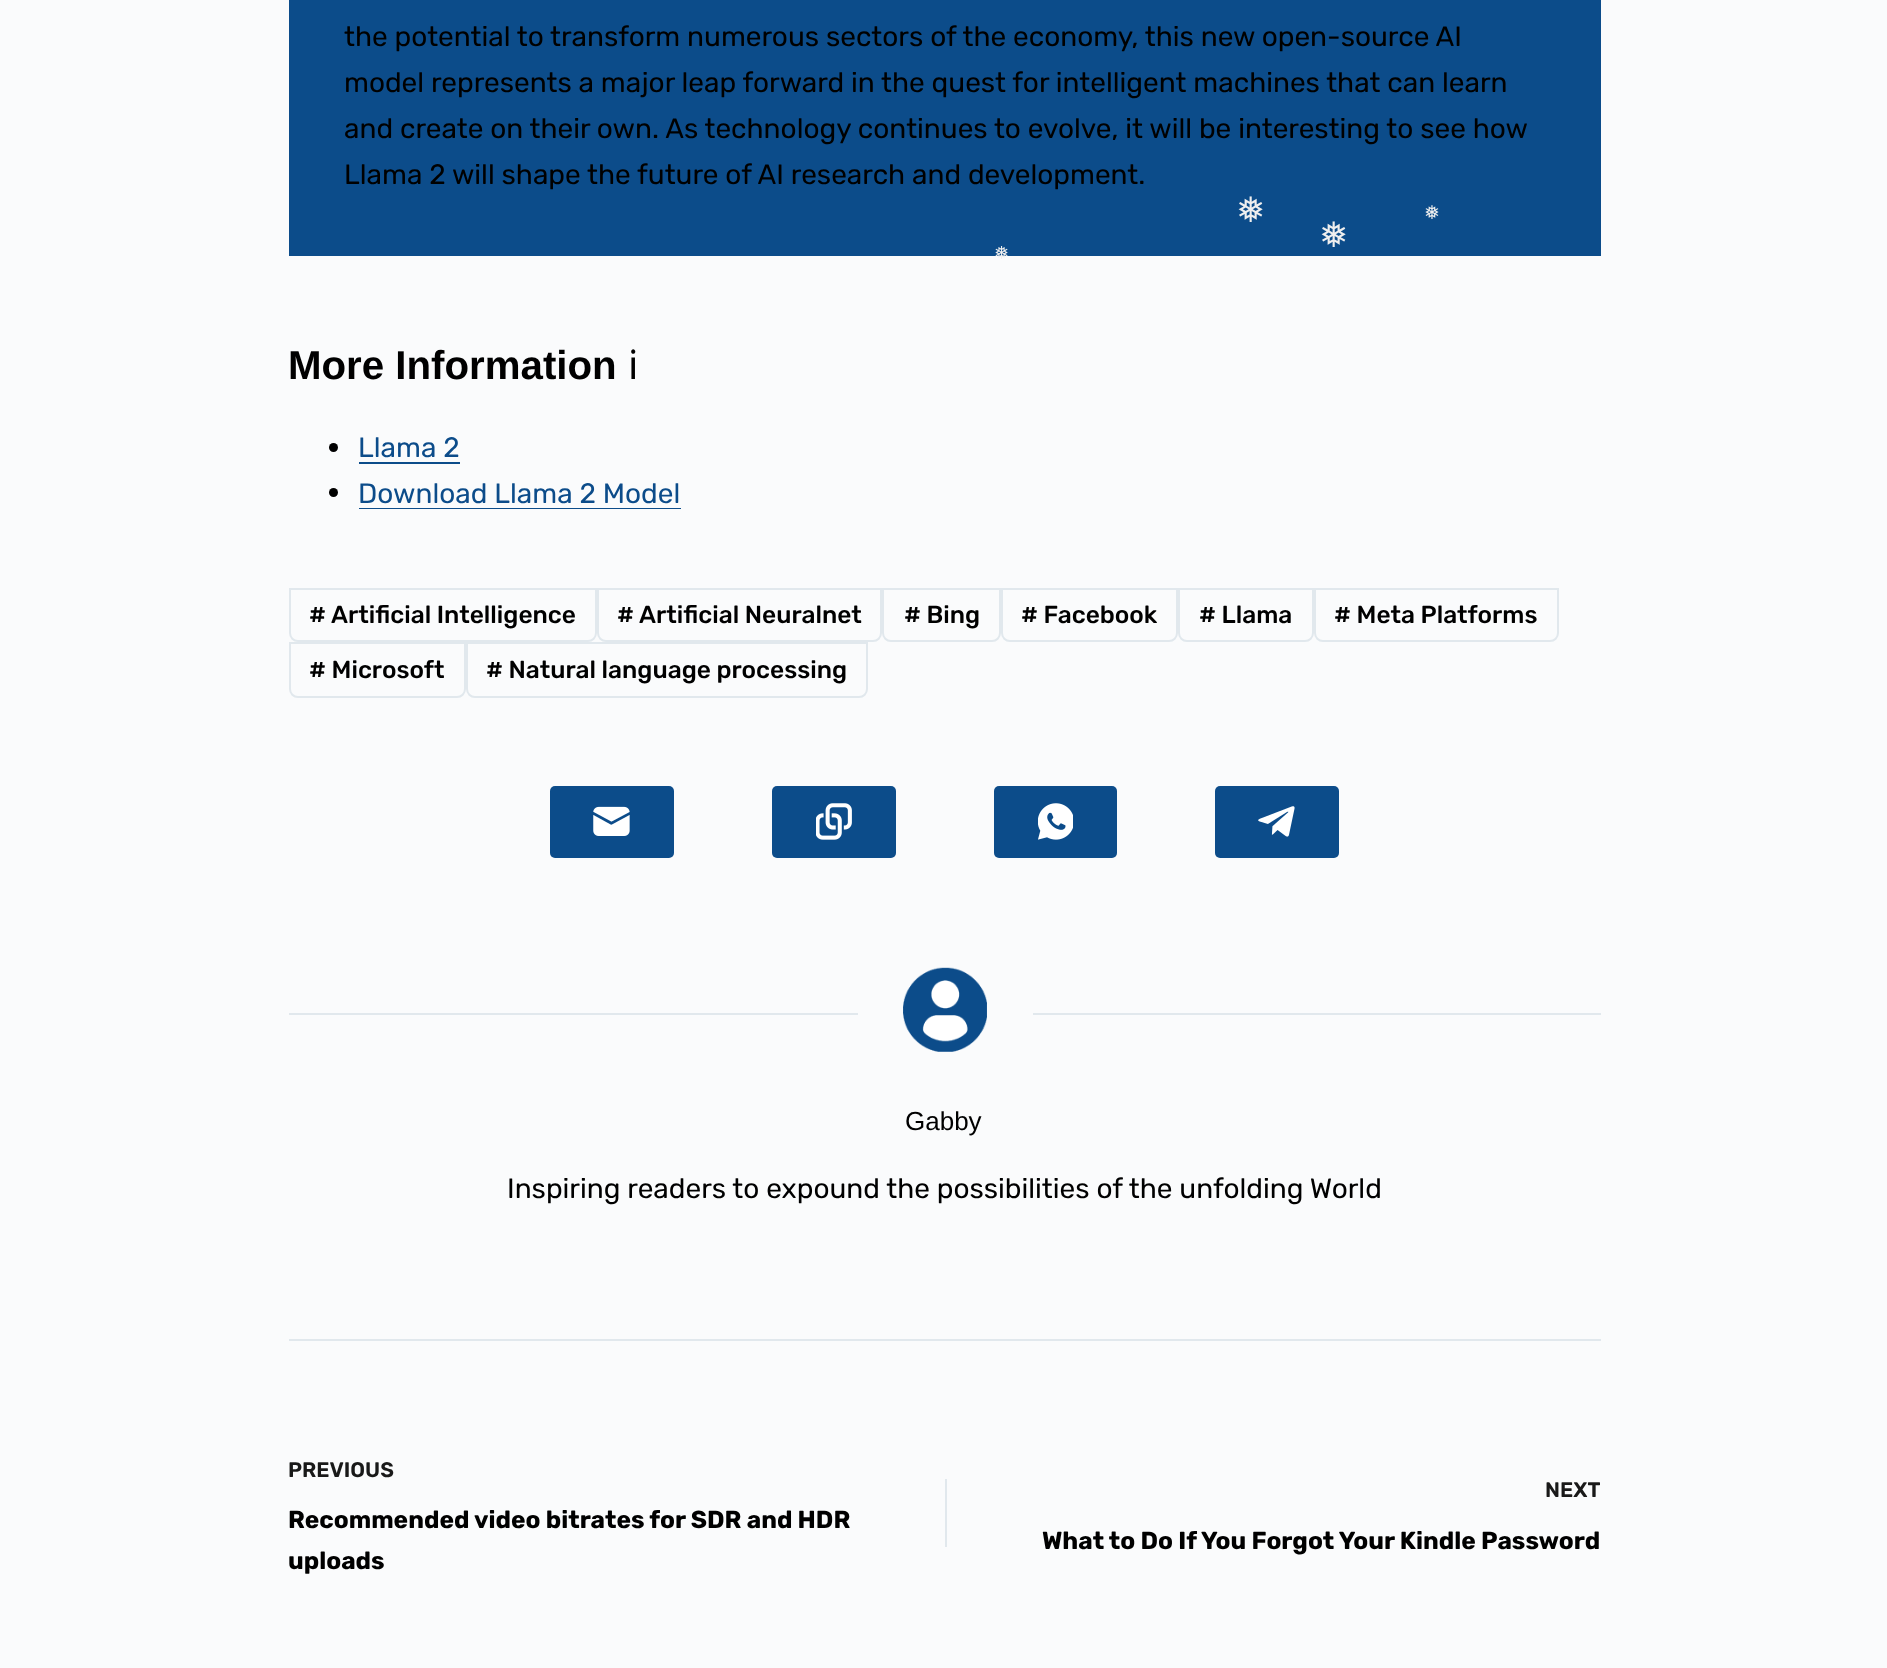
<svg xmlns="http://www.w3.org/2000/svg" width="1887" height="1668" viewBox="0 0 1887 1668">
  <rect width="100%" height="100%" fill="#fafbfc"/>
  <rect x="289" y="0" width="1312" height="256" fill="#0c4c8a"/>
  <text x="344" y="46" font-family="Rubik" font-size="28" fill="#000000">the potential to transform numerous sectors of the economy, this new open-source AI</text>
  <text x="344" y="92" font-family="Rubik" font-size="28" fill="#000000">model represents a major leap forward in the quest for intelligent machines that can learn</text>
  <text x="344" y="138" font-family="Rubik" font-size="28" fill="#000000">and create on their own. As technology continues to evolve, it will be interesting to see how</text>
  <text x="344" y="184" font-family="Rubik" font-size="28" fill="#000000">Llama 2 will shape the future of AI research and development.</text>
  <text x="288" y="379" font-family="Liberation Sans" font-size="40.25" font-weight="bold" fill="#000000">More Information</text>
  <text x="628" y="379" font-family="Noto Sans" font-size="40.25" fill="#000000">ℹ</text>
  <circle cx="333.5" cy="447.5" r="4.5" fill="#000000"/>
  <text x="358" y="457" font-family="Rubik" font-size="28" fill="#0c4c8a">Llama 2</text>
  <rect x="359" y="462" width="101" height="2" fill="#0c4c8a"/>
  <circle cx="333.5" cy="492.5" r="4.5" fill="#000000"/>
  <text x="358" y="503" font-family="Rubik" font-size="28" fill="#0c4c8a">Download Llama 2 Model</text>
  <rect x="359" y="508" width="322" height="1" fill="#0c4c8a"/>
  <path d="M290 589H596V633C596 637.5 592.5 641 588 641H298C293.5 641 290 637.5 290 633Z" fill="none" stroke="#e1e8ed" stroke-width="2"/>
  <text x="309" y="623" font-family="Rubik" font-size="24.5" font-weight="500" fill="#000000">#</text>
  <text x="331" y="623" font-family="Rubik" font-size="24.5" font-weight="500" fill="#000000">Artificial Intelligence</text>
  <path d="M598 589H881V633C881 637.5 877.5 641 873 641H606C601.5 641 598 637.5 598 633Z" fill="none" stroke="#e1e8ed" stroke-width="2"/>
  <text x="617" y="623" font-family="Rubik" font-size="24.5" font-weight="500" fill="#000000">#</text>
  <text x="639" y="623" font-family="Rubik" font-size="24.5" font-weight="500" fill="#000000">Artificial Neuralnet</text>
  <path d="M883 589H1000V633C1000 637.5 996.5 641 992 641H891C886.5 641 883 637.5 883 633Z" fill="none" stroke="#e1e8ed" stroke-width="2"/>
  <text x="904" y="623" font-family="Rubik" font-size="24.5" font-weight="500" fill="#000000"># Bing</text>
  <path d="M1002 589H1177V633C1177 637.5 1173.5 641 1169 641H1010C1005.5 641 1002 637.5 1002 633Z" fill="none" stroke="#e1e8ed" stroke-width="2"/>
  <text x="1021" y="623" font-family="Rubik" font-size="24.5" font-weight="500" fill="#000000"># Facebook</text>
  <path d="M1179 589H1313V633C1313 637.5 1309.5 641 1305 641H1187C1182.5 641 1179 637.5 1179 633Z" fill="none" stroke="#e1e8ed" stroke-width="2"/>
  <text x="1199" y="623" font-family="Rubik" font-size="24.5" font-weight="500" fill="#000000"># Llama</text>
  <path d="M1315 589H1558V633C1558 637.5 1554.5 641 1550 641H1323C1318.5 641 1315 637.5 1315 633Z" fill="none" stroke="#e1e8ed" stroke-width="2"/>
  <text x="1334" y="623" font-family="Rubik" font-size="24.5" font-weight="500" fill="#000000"># Meta Platforms</text>
  <path d="M290 643H465V689C465 693.5 461.5 697 457 697H298C293.5 697 290 693.5 290 689Z" fill="none" stroke="#e1e8ed" stroke-width="2"/>
  <text x="309" y="678" font-family="Rubik" font-size="24.5" font-weight="500" fill="#000000"># Microsoft</text>
  <path d="M467 643H867V689C867 693.5 863.5 697 859 697H475C470.5 697 467 693.5 467 689Z" fill="none" stroke="#e1e8ed" stroke-width="2"/>
  <text x="486" y="678" font-family="Rubik" font-size="24.5" font-weight="500" fill="#000000"># Natural language processing</text>
  <rect x="550" y="786" width="124" height="72" rx="5" fill="#0c4c8a"/>
  <image x="593" y="806" width="37" height="30" href="img1.png"/>
  <rect x="772" y="786" width="124" height="72" rx="5" fill="#0c4c8a"/>
  <image x="816" y="803" width="36" height="37" href="img2.png"/>
  <rect x="994" y="786" width="123" height="72" rx="5" fill="#0c4c8a"/>
  <image x="1038" y="803" width="35" height="37" href="img3.png"/>
  <rect x="1215" y="786" width="124" height="72" rx="5" fill="#0c4c8a"/>
  <image x="1258" y="806" width="37" height="31" href="img4.png"/>
  <rect x="289" y="1339" width="1312" height="2" fill="#e1e8ed"/>
  <rect x="289" y="1013" width="569" height="2" fill="#e1e8ed"/>
  <image x="903" y="967" width="84" height="85" href="img5.png"/>
  <rect x="1033" y="1013" width="568" height="2" fill="#e1e8ed"/>
  <text x="905" y="1130" font-family="Liberation Sans" font-size="26" fill="#000000">Gabby</text>
  <text x="507" y="1198" font-family="Rubik" font-size="28" fill="#000000">Inspiring readers to expound the possibilities of the unfolding World</text>
  <text x="288" y="1477" font-family="Rubik" font-size="21" font-weight="600" fill="#191919">PREVIOUS</text>
  <text x="288" y="1528" font-family="Rubik" font-size="24.5" font-weight="bold" fill="#000000">Recommended video bitrates for SDR and HDR</text>
  <text x="288" y="1569" font-family="Rubik" font-size="24.5" font-weight="bold" fill="#000000">uploads</text>
  <rect x="945" y="1479" width="2" height="68" fill="#e1e8ed"/>
  <text x="1545" y="1497" font-family="Rubik" font-size="21" font-weight="600" fill="#191919">NEXT</text>
  <text x="1042" y="1549" font-family="Rubik" font-size="24.5" font-weight="bold" fill="#000000">What to Do If You Forgot Your Kindle Password</text>
  <text x="1236" y="222" font-family="DejaVu Sans" font-size="35" fill="#efefef">❅</text>
  <text x="1424" y="219" font-family="DejaVu Sans" font-size="19" fill="#efefef">❅</text>
  <text x="1319" y="247" font-family="DejaVu Sans" font-size="35" fill="#efefef">❅</text>
  <text x="994" y="259" font-family="DejaVu Sans" font-size="18" fill="#efefef">❅</text>
</svg>
